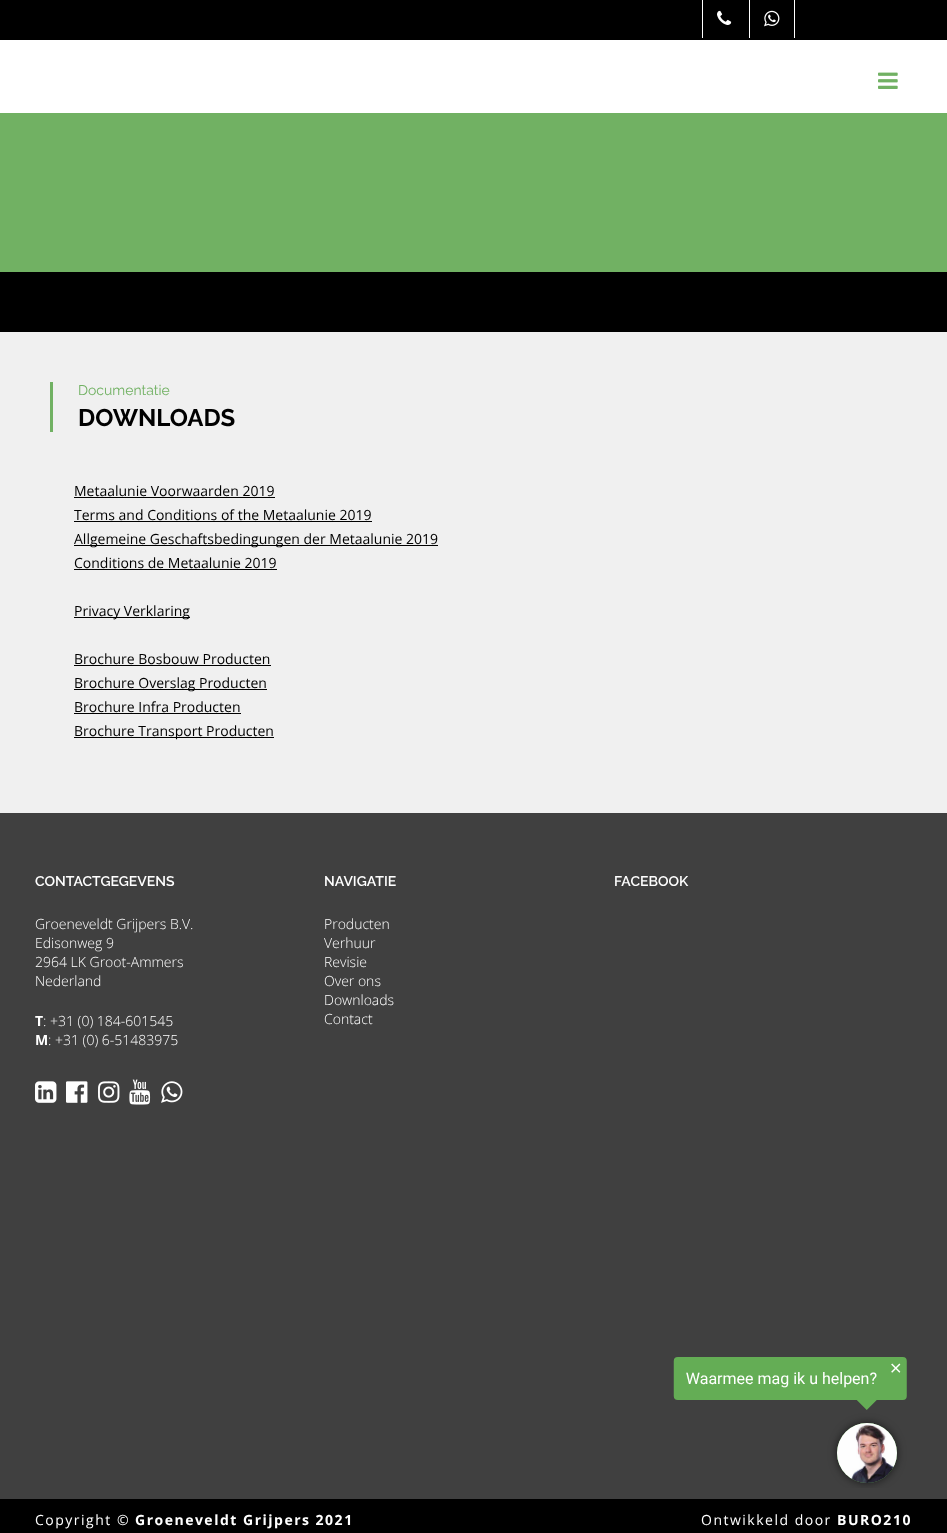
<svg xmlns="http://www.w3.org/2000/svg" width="947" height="1533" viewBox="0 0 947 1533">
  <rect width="100%" height="100%" fill="#000000"/>
  <rect x="0" y="40" width="947" height="73" fill="#ffffff"/>
  <rect x="702" y="0" width="1" height="38" fill="#ffffff"/>
  <image x="717" y="10" width="15" height="15" href="img1.png"/>
  <rect x="794" y="0" width="1" height="38" fill="#ffffff"/>
  <rect x="749" y="0" width="1" height="38" fill="#ffffff"/>
  <image x="764" y="10" width="16" height="17" href="img2.png"/>
  <image x="878" y="72" width="20" height="17" href="img3.png"/>
  <rect x="0" y="113" width="947" height="159" fill="#71b163"/>
  <rect x="0" y="332" width="947" height="481" fill="#f0f0f0"/>
  <rect x="50" y="382" width="3" height="50" fill="#71b163"/>
  <text x="78" y="395" font-family="Raleway" font-size="14" fill="#71b163">Documentatie</text>
  <text x="78" y="426" font-family="Raleway" font-size="24" font-weight="bold" fill="#000000">DOWNLOADS</text>
  <text x="74" y="496" font-family="Open Sans" font-size="14" fill="#000000">Metaalunie Voorwaarden 2019</text>
  <rect x="74" y="497" width="201" height="1" fill="#000000"/>
  <text x="74" y="520" font-family="Open Sans" font-size="14" fill="#000000">Terms and Conditions of the Metaalunie 2019</text>
  <rect x="74" y="521" width="298" height="1" fill="#000000"/>
  <rect x="74" y="545" width="364" height="1" fill="#000000"/>
  <text x="74" y="544" font-family="Open Sans" font-size="14" fill="#000000">Allgemeine Geschaftsbedingungen der Metaalunie 2019</text>
  <text x="74" y="568" font-family="Open Sans" font-size="14" fill="#000000">Conditions de Metaalunie 2019</text>
  <rect x="74" y="569" width="203" height="1" fill="#000000"/>
  <rect x="74" y="617" width="116" height="1" fill="#000000"/>
  <text x="74" y="616" font-family="Open Sans" font-size="14" fill="#000000">Privacy Verklaring</text>
  <text x="74" y="664" font-family="Open Sans" font-size="14" fill="#000000">Brochure Bosbouw Producten</text>
  <rect x="74" y="665" width="197" height="1" fill="#000000"/>
  <rect x="74" y="689" width="193" height="1" fill="#000000"/>
  <text x="74" y="688" font-family="Open Sans" font-size="14" fill="#000000">Brochure Overslag Producten</text>
  <text x="74" y="712" font-family="Open Sans" font-size="14" fill="#000000">Brochure Infra Producten</text>
  <rect x="74" y="713" width="167" height="1" fill="#000000"/>
  <rect x="74" y="737" width="200" height="1" fill="#000000"/>
  <text x="74" y="736" font-family="Open Sans" font-size="14" fill="#000000">Brochure Transport Producten</text>
  <rect x="0" y="813" width="947" height="686" fill="#404040"/>
  <text x="35" y="886" font-family="Raleway" font-size="14" font-weight="600" fill="#ffffff">CONTACTGEGEVENS</text>
  <text x="35" y="929" font-family="Open Sans" font-size="14" font-weight="300" fill="#ffffff">Groeneveldt Grijpers B.V.</text>
  <text x="35" y="948" font-family="Open Sans" font-size="14" font-weight="300" fill="#ffffff">Edisonweg 9</text>
  <text x="35" y="967" font-family="Open Sans" font-size="14" font-weight="300" fill="#ffffff">2964 LK Groot-Ammers</text>
  <text x="35" y="986" font-family="Open Sans" font-size="14" font-weight="300" fill="#ffffff">Nederland</text>
  <text x="35" y="1026" font-family="Open Sans" font-size="14" font-weight="bold" fill="#ffffff">T</text>
  <text x="43" y="1026" font-family="Open Sans" font-size="14" font-weight="300" fill="#ffffff">: +31 (0) 184-601545</text>
  <text x="35" y="1045" font-family="Open Sans" font-size="14" font-weight="bold" fill="#ffffff">M</text>
  <text x="48" y="1045" font-family="Open Sans" font-size="14" font-weight="300" fill="#ffffff">: +31 (0) 6-51483975</text>
  <image x="35" y="1081" width="22" height="22" href="img4.png"/>
  <image x="66" y="1081" width="22" height="22" href="img5.png"/>
  <image x="98" y="1081" width="22" height="22" href="img6.png"/>
  <image x="129" y="1079" width="22" height="26" href="img7.png"/>
  <image x="161" y="1081" width="22" height="22" href="img8.png"/>
  <text x="324" y="886" font-family="Raleway" font-size="14" font-weight="600" fill="#ffffff">NAVIGATIE</text>
  <text x="324" y="929" font-family="Open Sans" font-size="14" font-weight="300" fill="#ffffff">Producten</text>
  <text x="324" y="948" font-family="Open Sans" font-size="14" font-weight="300" fill="#ffffff">Verhuur</text>
  <text x="324" y="967" font-family="Open Sans" font-size="14" font-weight="300" fill="#ffffff">Revisie</text>
  <text x="324" y="986" font-family="Open Sans" font-size="14" font-weight="300" fill="#ffffff">Over ons</text>
  <text x="324" y="1005" font-family="Open Sans" font-size="14" font-weight="300" fill="#ffffff">Downloads</text>
  <text x="324" y="1024" font-family="Open Sans" font-size="14" font-weight="300" fill="#ffffff">Contact</text>
  <text x="614" y="886" font-family="Raleway" font-size="14" font-weight="600" fill="#ffffff">FACEBOOK</text>
  <text x="35" y="1525" font-family="Open Sans" font-size="14" letter-spacing="1.5" fill="#ffffff">Copyright ©</text>
  <text x="135" y="1525" font-family="Open Sans" font-size="14" font-weight="bold" letter-spacing="1.5" fill="#ffffff">Groeneveldt Grijpers 2021</text>
  <text x="701" y="1525" font-family="Open Sans" font-size="14" letter-spacing="1.5" fill="#ffffff">Ontwikkeld door</text>
  <text x="837" y="1525" font-family="Open Sans" font-size="14" font-weight="bold" letter-spacing="1.5" fill="#ffffff">BURO210</text>
  <image x="673" y="1357" width="234" height="131" href="img9.png"/>
</svg>
